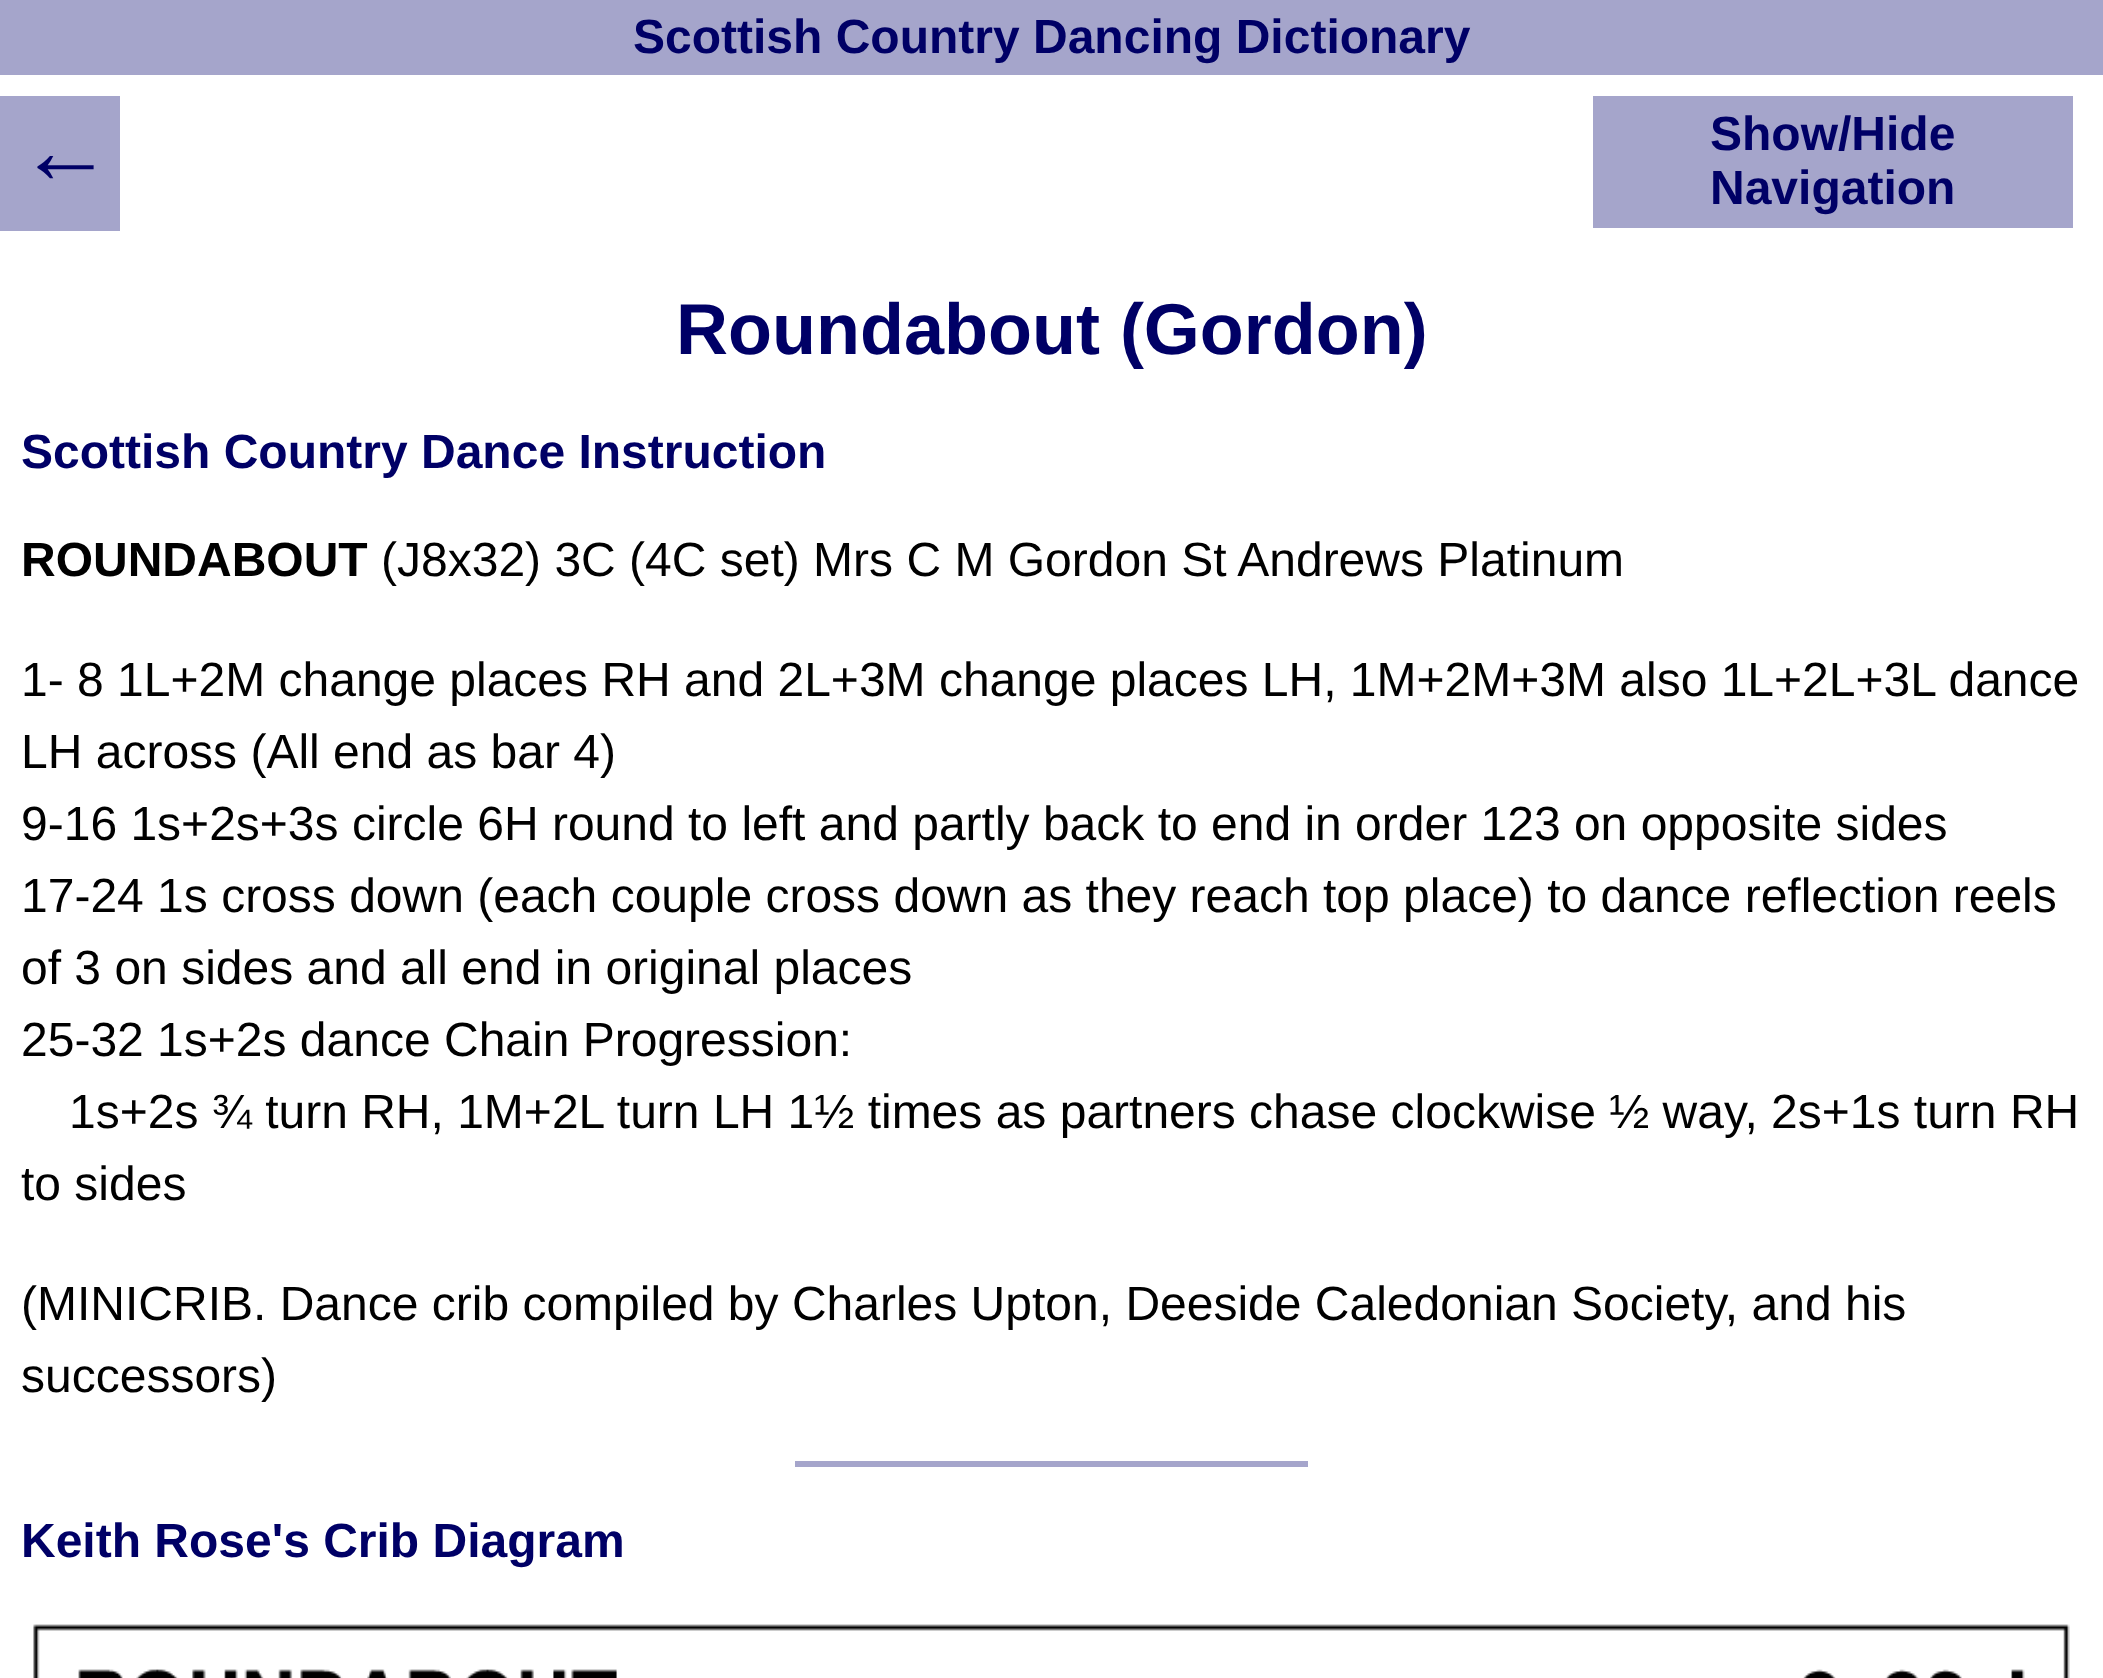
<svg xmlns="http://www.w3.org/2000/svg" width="2103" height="1678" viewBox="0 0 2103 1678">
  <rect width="100%" height="100%" fill="#ffffff"/>
  <rect x="0" y="0" width="2103" height="75" fill="#a5a5cb"/>
  <text x="633" y="53" font-family="Liberation Sans" font-size="48" font-weight="bold" fill="#000066">Scottish Country Dancing Dictionary</text>
  <rect x="1593" y="96" width="480" height="132" fill="#a5a5cb"/>
  <text x="1710" y="150" font-family="Liberation Sans" font-size="48" font-weight="bold" fill="#000066">Show/Hide</text>
  <text x="1710" y="204" font-family="Liberation Sans" font-size="48" font-weight="bold" fill="#000066">Navigation</text>
  <text x="676" y="354" font-family="Liberation Sans" font-size="72" font-weight="bold" fill="#000066">Roundabout (Gordon)</text>
  <text x="21" y="468" font-family="Liberation Sans" font-size="48" font-weight="bold" fill="#000066">Scottish Country Dance Instruction</text>
  <text x="21" y="576" font-family="Liberation Sans" font-size="48" font-weight="bold" fill="#000000">ROUNDABOUT</text>
  <text x="381" y="576" font-family="Liberation Sans" font-size="48" fill="#000000">(J8x32) 3C (4C set) Mrs C M Gordon St Andrews Platinum</text>
  <text x="21" y="696" font-family="Liberation Sans" font-size="48" fill="#000000">1- 8 1L+2M change places RH and 2L+3M change places LH, 1M+2M+3M also 1L+2L+3L dance</text>
  <text x="21" y="768" font-family="Liberation Sans" font-size="48" fill="#000000">LH across (All end as bar 4)</text>
  <text x="21" y="840" font-family="Liberation Sans" font-size="48" fill="#000000">9-16 1s+2s+3s circle 6H round to left and partly back to end in order 123 on opposite sides</text>
  <text x="21" y="912" font-family="Liberation Sans" font-size="48" fill="#000000">17-24 1s cross down (each couple cross down as they reach top place) to dance reflection reels</text>
  <text x="21" y="984" font-family="Liberation Sans" font-size="48" fill="#000000">of 3 on sides and all end in original places</text>
  <text x="21" y="1056" font-family="Liberation Sans" font-size="48" fill="#000000">25-32 1s+2s dance Chain Progression:</text>
  <text x="69" y="1128" font-family="Liberation Sans" font-size="48" fill="#000000">1s+2s ¾ turn RH, 1M+2L turn LH 1½ times as partners chase clockwise ½ way, 2s+1s turn RH</text>
  <text x="21" y="1200" font-family="Liberation Sans" font-size="48" fill="#000000">to sides</text>
  <text x="21" y="1320" font-family="Liberation Sans" font-size="48" fill="#000000">(MINICRIB. Dance crib compiled by Charles Upton, Deeside Caledonian Society, and his</text>
  <text x="21" y="1392" font-family="Liberation Sans" font-size="48" fill="#000000">successors)</text>
  <rect x="795" y="1461" width="513" height="6" fill="#a5a5cb"/>
  <text x="21" y="1557" font-family="Liberation Sans" font-size="48" font-weight="bold" fill="#000066">Keith Rose's Crib Diagram</text>
  <image x="33" y="1624" width="2037" height="54" href="img1.png"/>
  <rect x="0" y="96" width="120" height="135" fill="#a5a5cb"/>
  <text x="18" y="183" font-family="Liberation Sans" font-size="95" fill="#000066">←</text>
</svg>
